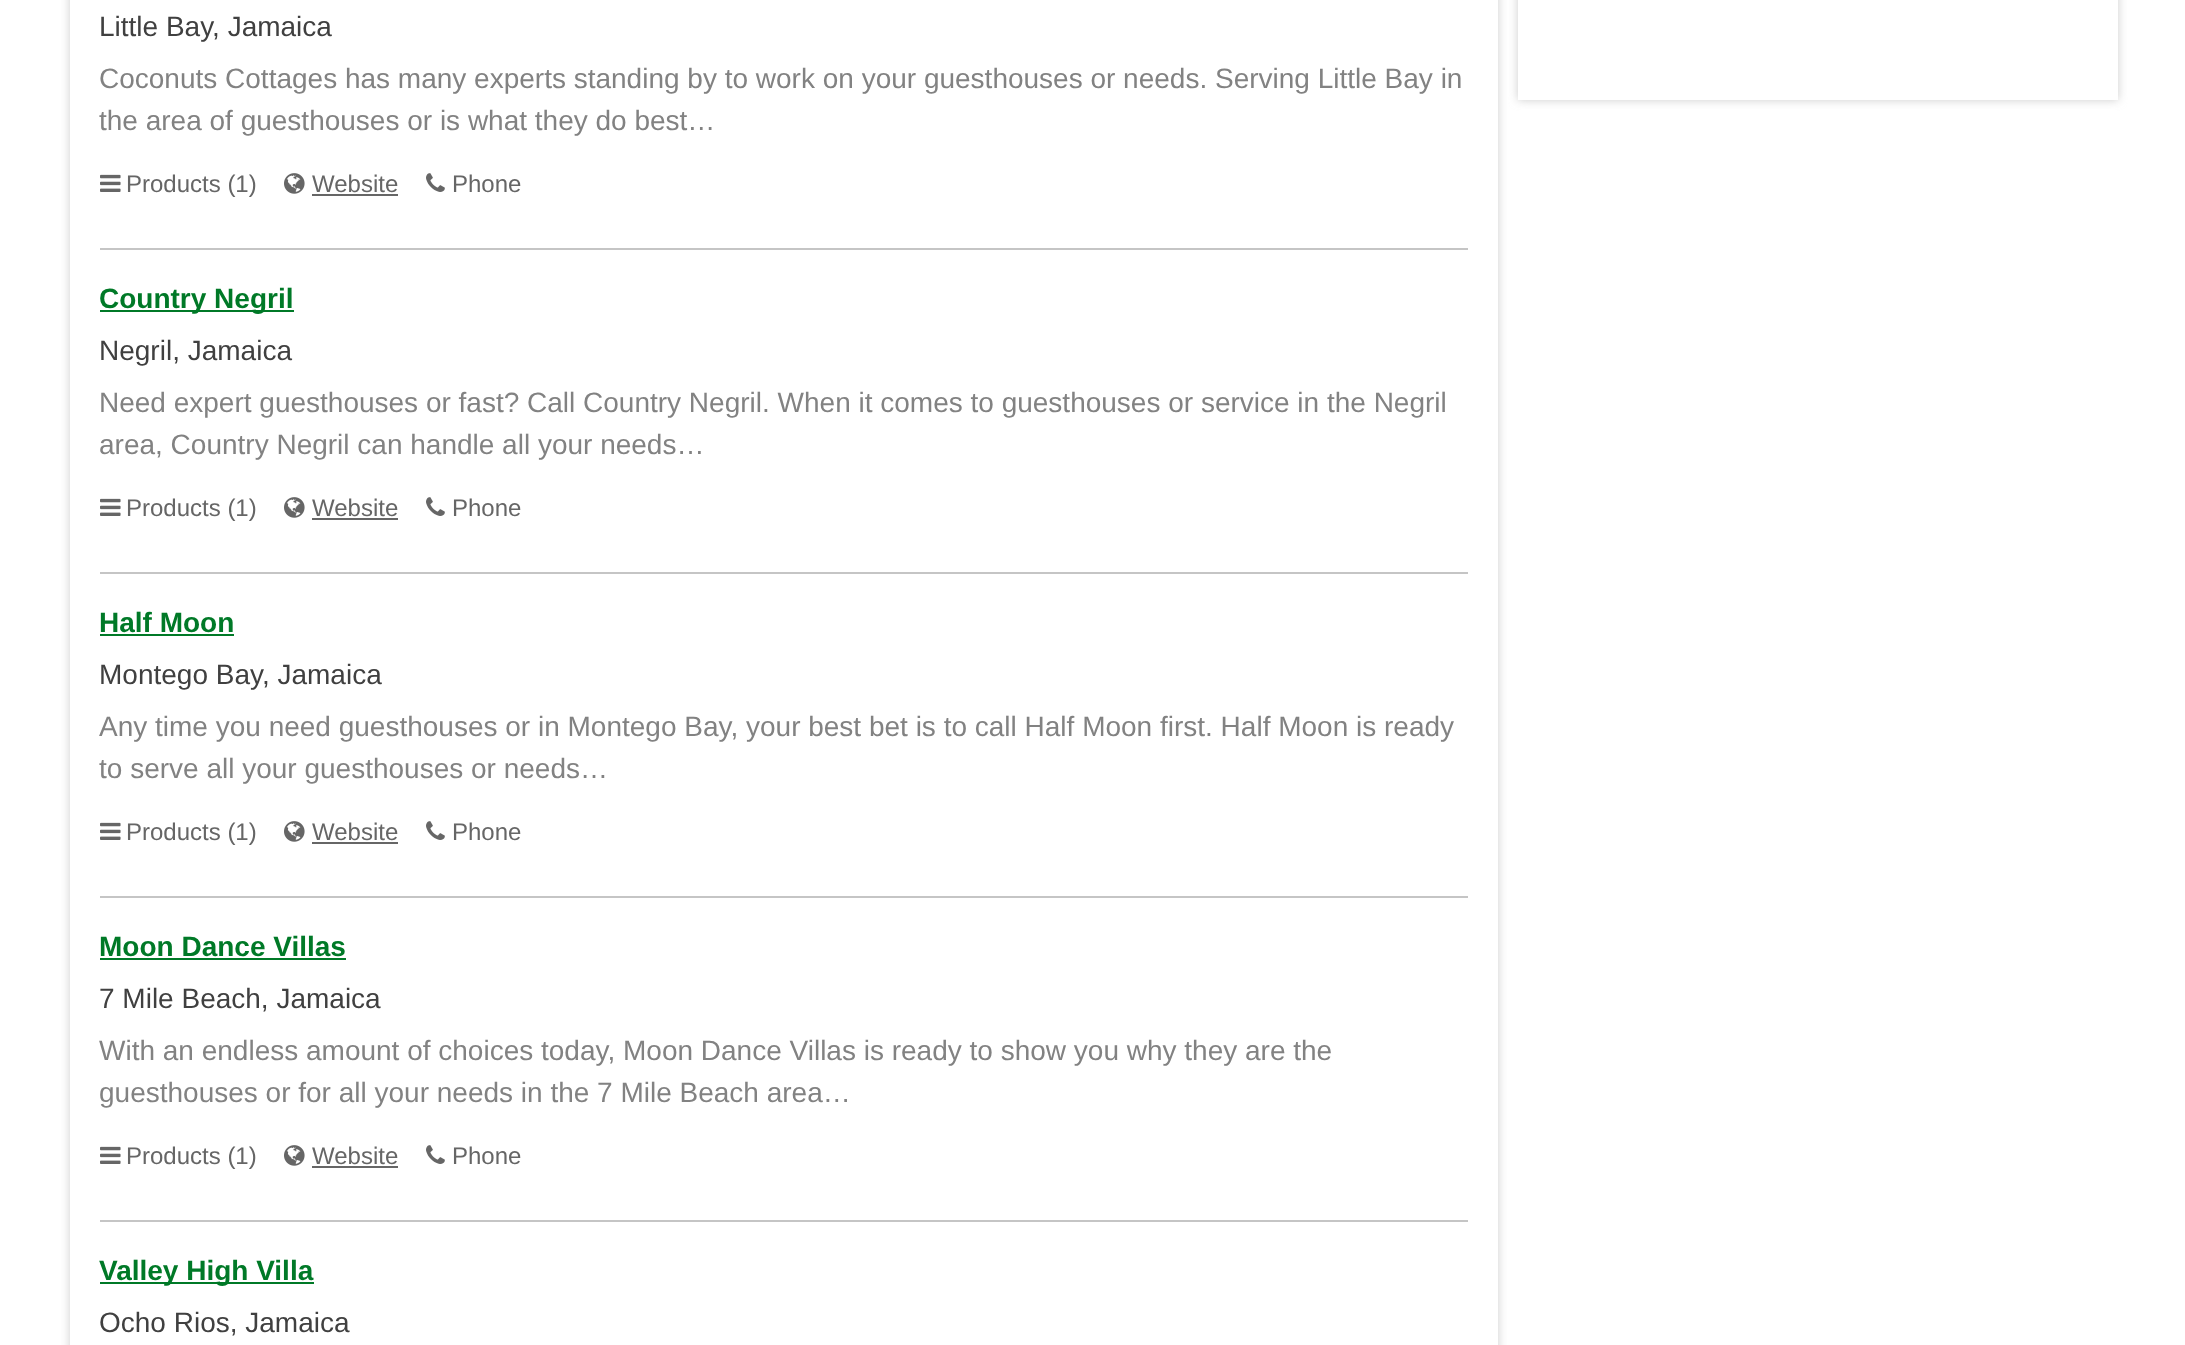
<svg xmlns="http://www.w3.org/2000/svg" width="2185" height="1345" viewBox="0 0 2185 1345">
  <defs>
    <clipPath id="clip1"><path d="M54 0H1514V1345H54ZM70-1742H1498V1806H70Z" clip-rule="evenodd"/></clipPath>
    <filter id="blur1" x="-50%" y="-200%" width="200%" height="500%"><feGaussianBlur stdDeviation="5"/></filter>
    <clipPath id="clip2"><path d="M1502 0H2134V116H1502ZM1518-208H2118V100H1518Z" clip-rule="evenodd"/></clipPath>
  </defs>
  <rect width="100%" height="100%" fill="#ffffff"/>
  <g clip-path="url(#clip1)">
    <rect x="70" y="-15" width="1428" height="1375" fill="#cccccc" filter="url(#blur1)"/>
  </g>
  <rect x="100" y="248" width="1368" height="2" fill="#c5c5c5"/>
  <text x="99" y="36" font-family="Liberation Sans" font-size="28" fill="#404040">Little Bay, Jamaica</text>
  <text x="99" y="88" font-family="Liberation Sans" font-size="28" fill="#828282">Coconuts Cottages has many experts standing by to work on your guesthouses or needs. Serving Little Bay in</text>
  <text x="99" y="130" font-family="Liberation Sans" font-size="28" fill="#828282">the area of guesthouses or is what they do best…</text>
  <image x="100" y="174" width="21" height="18" href="img1.png"/>
  <text x="126" y="192" font-family="Liberation Sans" font-size="24" fill="#666666">Products (1)</text>
  <image x="284" y="173" width="21" height="21" href="img2.png"/>
  <text x="312" y="192" font-family="Liberation Sans" font-size="24" fill="#666666">Website</text>
  <rect x="312" y="194" width="86" height="2" fill="#666666"/>
  <image x="426" y="173" width="19" height="19" href="img3.png"/>
  <text x="452" y="192" font-family="Liberation Sans" font-size="24" fill="#666666">Phone</text>
  <rect x="100" y="572" width="1368" height="2" fill="#c5c5c5"/>
  <rect x="100" y="310" width="194" height="2" fill="#007927"/>
  <text x="99" y="308" font-family="Liberation Sans" font-size="28" font-weight="bold" fill="#007927">Country Negril</text>
  <text x="99" y="360" font-family="Liberation Sans" font-size="28" fill="#404040">Negril, Jamaica</text>
  <text x="99" y="412" font-family="Liberation Sans" font-size="28" fill="#828282">Need expert guesthouses or fast? Call Country Negril. When it comes to guesthouses or service in the Negril</text>
  <text x="99" y="454" font-family="Liberation Sans" font-size="28" fill="#828282">area, Country Negril can handle all your needs…</text>
  <image x="100" y="498" width="21" height="18" href="img1.png"/>
  <text x="126" y="516" font-family="Liberation Sans" font-size="24" fill="#666666">Products (1)</text>
  <image x="284" y="497" width="21" height="21" href="img2.png"/>
  <text x="312" y="516" font-family="Liberation Sans" font-size="24" fill="#666666">Website</text>
  <rect x="312" y="518" width="86" height="2" fill="#666666"/>
  <image x="426" y="497" width="19" height="19" href="img3.png"/>
  <text x="452" y="516" font-family="Liberation Sans" font-size="24" fill="#666666">Phone</text>
  <rect x="100" y="896" width="1368" height="2" fill="#c5c5c5"/>
  <text x="99" y="632" font-family="Liberation Sans" font-size="28" font-weight="bold" fill="#007927">Half Moon</text>
  <rect x="100" y="634" width="134" height="2" fill="#007927"/>
  <text x="99" y="684" font-family="Liberation Sans" font-size="28" fill="#404040">Montego Bay, Jamaica</text>
  <text x="99" y="736" font-family="Liberation Sans" font-size="28" fill="#828282">Any time you need guesthouses or in Montego Bay, your best bet is to call Half Moon first. Half Moon is ready</text>
  <text x="99" y="778" font-family="Liberation Sans" font-size="28" fill="#828282">to serve all your guesthouses or needs…</text>
  <image x="100" y="822" width="21" height="18" href="img1.png"/>
  <text x="126" y="840" font-family="Liberation Sans" font-size="24" fill="#666666">Products (1)</text>
  <image x="284" y="821" width="21" height="21" href="img2.png"/>
  <text x="312" y="840" font-family="Liberation Sans" font-size="24" fill="#666666">Website</text>
  <rect x="312" y="842" width="86" height="2" fill="#666666"/>
  <image x="426" y="821" width="19" height="19" href="img3.png"/>
  <text x="452" y="840" font-family="Liberation Sans" font-size="24" fill="#666666">Phone</text>
  <rect x="100" y="1220" width="1368" height="2" fill="#c5c5c5"/>
  <text x="99" y="956" font-family="Liberation Sans" font-size="28" font-weight="bold" fill="#007927">Moon Dance Villas</text>
  <rect x="100" y="958" width="246" height="2" fill="#007927"/>
  <text x="99" y="1008" font-family="Liberation Sans" font-size="28" fill="#404040">7 Mile Beach, Jamaica</text>
  <text x="99" y="1060" font-family="Liberation Sans" font-size="28" fill="#828282">With an endless amount of choices today, Moon Dance Villas is ready to show you why they are the</text>
  <text x="99" y="1102" font-family="Liberation Sans" font-size="28" fill="#828282">guesthouses or for all your needs in the 7 Mile Beach area…</text>
  <image x="100" y="1146" width="21" height="18" href="img1.png"/>
  <text x="126" y="1164" font-family="Liberation Sans" font-size="24" fill="#666666">Products (1)</text>
  <image x="284" y="1145" width="21" height="21" href="img2.png"/>
  <text x="312" y="1164" font-family="Liberation Sans" font-size="24" fill="#666666">Website</text>
  <rect x="312" y="1166" width="86" height="2" fill="#666666"/>
  <image x="426" y="1145" width="19" height="19" href="img3.png"/>
  <text x="452" y="1164" font-family="Liberation Sans" font-size="24" fill="#666666">Phone</text>
  <rect x="100" y="1282" width="214" height="2" fill="#007927"/>
  <text x="99" y="1280" font-family="Liberation Sans" font-size="28" font-weight="bold" fill="#007927">Valley High Villa</text>
  <text x="99" y="1332" font-family="Liberation Sans" font-size="28" fill="#404040">Ocho Rios, Jamaica</text>
  <g clip-path="url(#clip2)">
    <rect x="1518" y="-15" width="600" height="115" fill="#cccccc" filter="url(#blur1)"/>
  </g>
</svg>
